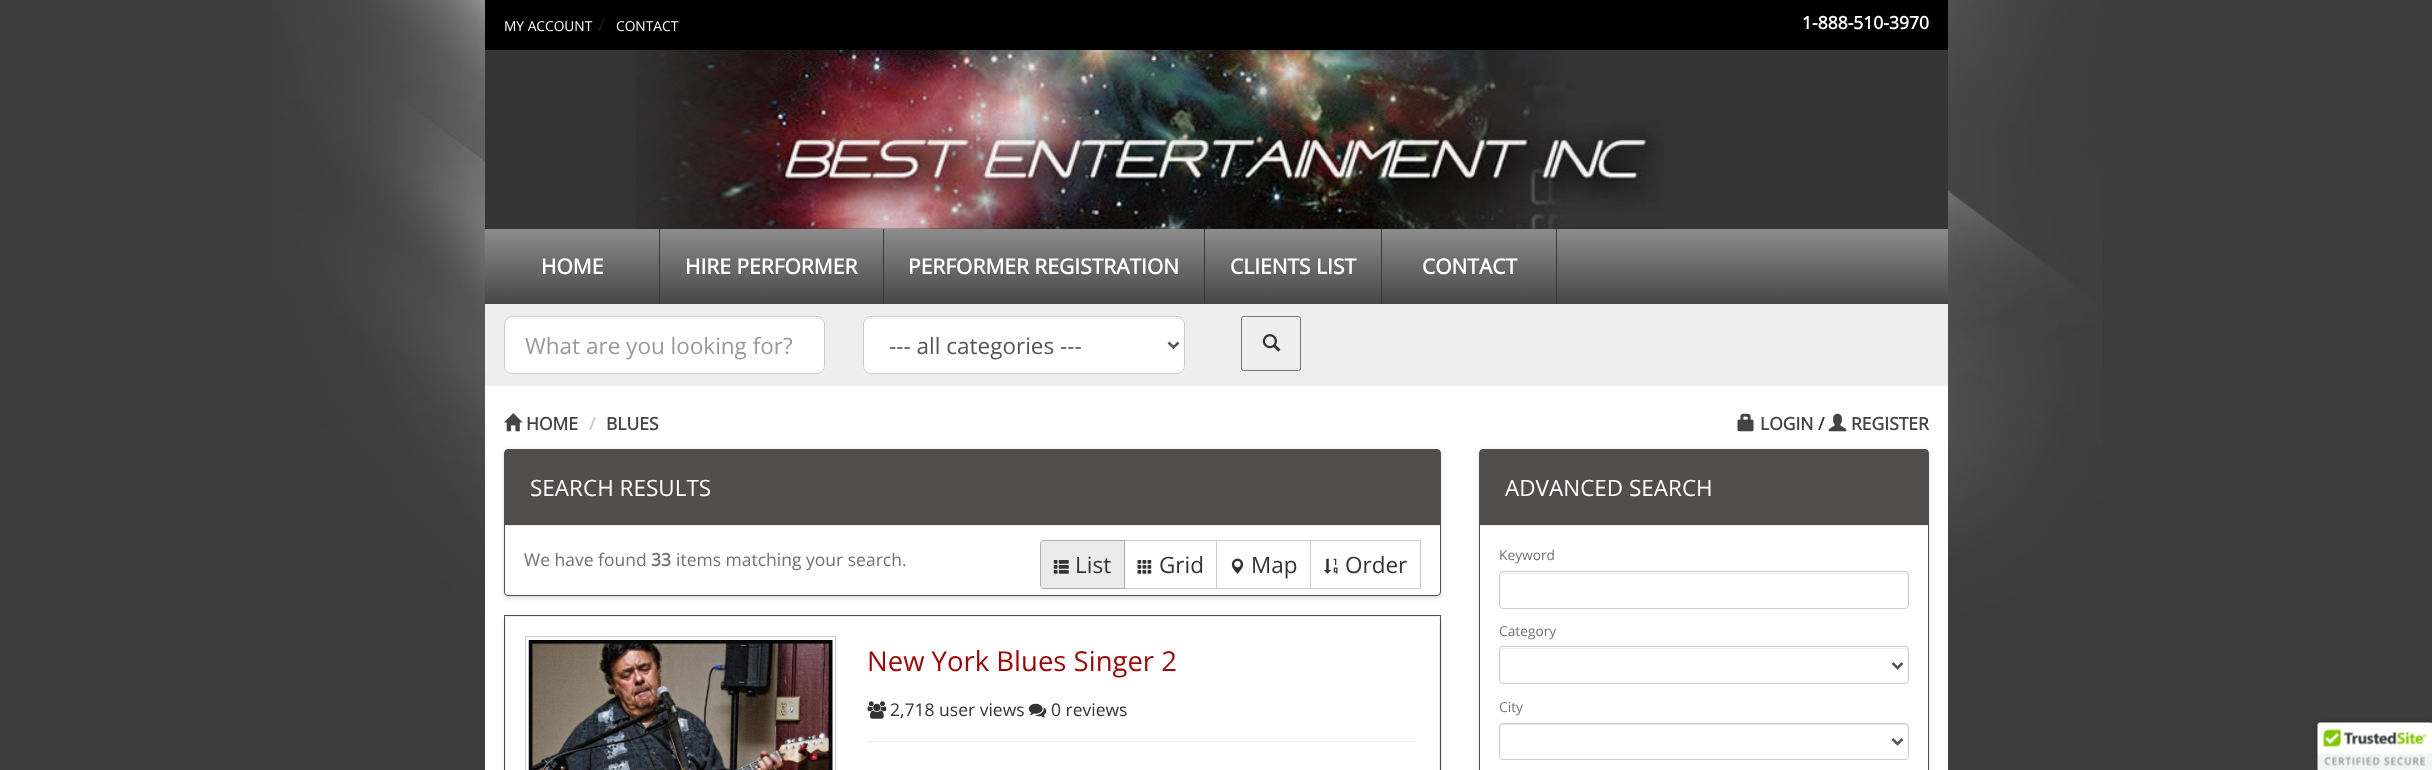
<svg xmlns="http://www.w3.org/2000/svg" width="2432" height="770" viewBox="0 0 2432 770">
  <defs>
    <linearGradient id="g1" gradientUnits="userSpaceOnUse" x1="1216" y1="229" x2="1216" y2="304"><stop offset="0" stop-color="#8c8c8c"/><stop offset="1" stop-color="#474747"/></linearGradient>
    <clipPath id="clip1"><path d="M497 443H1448V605H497ZM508 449H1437C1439 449 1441 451 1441 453V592C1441 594 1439 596 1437 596H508C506 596 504 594 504 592V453C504 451 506 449 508 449Z" clip-rule="evenodd"/></clipPath>
    <filter id="blur1" x="-50%" y="-200%" width="200%" height="500%"><feGaussianBlur stdDeviation="2"/></filter>
    <filter id="blur2" x="-50%" y="-200%" width="200%" height="500%"><feGaussianBlur stdDeviation="3"/></filter>
  </defs>
  <rect width="100%" height="100%" fill="#3c3c3c"/>
  <image x="272" y="0" width="1831" height="663" href="img1.png"/>
  <rect x="485" y="0" width="1463" height="50" fill="#000000"/>
  <text x="504" y="31" font-family="Open Sans" font-size="13.75" fill="#ffffff">MY ACCOUNT</text>
  <text x="598" y="31" font-family="Open Sans" font-size="17.5" font-weight="bold" fill="#1a1a1a">/</text>
  <text x="616" y="31" font-family="Open Sans" font-size="13.75" fill="#ffffff">CONTACT</text>
  <text x="1802" y="29" font-family="Open Sans" font-size="17.5" font-weight="bold" fill="#ffffff">1-888-510-3970</text>
  <rect x="485" y="50" width="1463" height="179" fill="#343434"/>
  <image x="636" y="50" width="1028" height="179" href="img2.png"/>
  <rect x="485" y="229" width="1463" height="75" fill="url(#g1)"/>
  <rect x="659" y="229" width="1" height="75" fill="#3a3a3a"/>
  <text x="541" y="274" font-family="Open Sans" font-size="21" font-weight="bold" fill="#ffffff">HOME</text>
  <rect x="883" y="229" width="1" height="75" fill="#3a3a3a"/>
  <text x="685" y="274" font-family="Open Sans" font-size="21" font-weight="bold" fill="#ffffff">HIRE PERFORMER</text>
  <rect x="1204" y="229" width="1" height="75" fill="#3a3a3a"/>
  <text x="908" y="274" font-family="Open Sans" font-size="21" font-weight="bold" fill="#ffffff">PERFORMER REGISTRATION</text>
  <rect x="1381" y="229" width="1" height="75" fill="#3a3a3a"/>
  <text x="1230" y="274" font-family="Open Sans" font-size="21" font-weight="bold" fill="#ffffff">CLIENTS LIST</text>
  <rect x="1556" y="229" width="1" height="75" fill="#3a3a3a"/>
  <text x="1422" y="274" font-family="Open Sans" font-size="21" font-weight="bold" fill="#ffffff">CONTACT</text>
  <rect x="485" y="304" width="1463" height="82" fill="#eeeeee"/>
  <rect x="504" y="316" width="321" height="58" rx="8" fill="#ffffff"/>
  <path d="M511 319H818C821 319 824 322 824 325V324C824 321 821 318 818 318H511C508 318 505 321 505 324V325C505 322 508 319 511 319Z" fill="#ececec"/>
  <rect x="504.5" y="316.5" width="320" height="57" rx="7.5" fill="none" stroke="#cccccc"/>
  <text x="525" y="354" font-family="Open Sans" font-size="22.5" fill="#999999">What are you looking for?</text>
  <rect x="863" y="316" width="322" height="58" rx="8" fill="#ffffff"/>
  <path d="M870 319H1178C1181 319 1184 322 1184 325V324C1184 321 1181 318 1178 318H870C867 318 864 321 864 324V325C864 322 867 319 870 319Z" fill="#ececec"/>
  <rect x="863.5" y="316.5" width="321" height="57" rx="7.5" fill="none" stroke="#cccccc"/>
  <path d="M1168.5 342.5L1173.5 347.5L1178.5 342.5" fill="none" stroke="#555555" stroke-width="2.5"/>
  <text x="889" y="354" font-family="Open Sans" font-size="22.5" fill="#555555">--- all categories ---</text>
  <rect x="1241.5" y="316.5" width="59" height="54" rx="2" fill="none" stroke="#767676"/>
  <image x="1262" y="334" width="19" height="18" href="img3.png"/>
  <rect x="485" y="386" width="1463" height="384" fill="#ffffff"/>
  <image x="503" y="413" width="20" height="19" href="img4.png"/>
  <text x="526" y="430" font-family="Open Sans" font-size="17.5" font-weight="bold" fill="#444444">HOME</text>
  <text x="589" y="430" font-family="Open Sans" font-size="17.5" font-weight="bold" fill="#cccccc">/</text>
  <text x="606" y="430" font-family="Open Sans" font-size="17.5" font-weight="bold" fill="#444444">BLUES</text>
  <image x="1737" y="413" width="17" height="19" href="img5.png"/>
  <text x="1760" y="430" font-family="Open Sans" font-size="17.5" font-weight="bold" fill="#444444">LOGIN</text>
  <text x="1818" y="430" font-family="Open Sans" font-size="17.5" font-weight="bold" fill="#333333">/</text>
  <image x="1828" y="413" width="19" height="19" href="img6.png"/>
  <text x="1851" y="430" font-family="Open Sans" font-size="17.5" font-weight="bold" fill="#444444">REGISTER</text>
  <g clip-path="url(#clip1)">
    <rect x="504" y="450" width="937" height="148" rx="4" fill="#000000" fill-opacity="0.15" filter="url(#blur1)"/>
  </g>
  <rect x="504.5" y="449.5" width="936" height="146" rx="3.5" fill="none" stroke="#514e4e"/>
  <rect x="505" y="450" width="935" height="75" fill="#514e4e"/>
  <rect x="505" y="525" width="935" height="1" fill="#e6e6e6"/>
  <text x="530" y="496" font-family="Open Sans" font-size="22.5" fill="#ffffff">SEARCH RESULTS</text>
  <text x="524" y="566" font-family="Open Sans" font-size="17.5" fill="#727272">We have found</text>
  <text x="651" y="566" font-family="Open Sans" font-size="17.5" font-weight="bold" fill="#727272">33</text>
  <text x="676" y="566" font-family="Open Sans" font-size="17.5" fill="#727272">items matching your search.</text>
  <rect x="1124.5" y="540.5" width="93" height="48" fill="none" stroke="#cccccc"/>
  <path d="M1044 540.5H1124.5V588.5H1044C1042 588.5 1040.5 587 1040.5 585V544C1040.5 542 1042 540.5 1044 540.5Z" fill="#ebebeb" stroke="#adadad"/>
  <image x="1053" y="560" width="16" height="14" href="img7.png"/>
  <text x="1075" y="573" font-family="Open Sans" font-size="22.5" fill="#333333">List</text>
  <image x="1137" y="560" width="15" height="14" href="img8.png"/>
  <text x="1159" y="573" font-family="Open Sans" font-size="22.5" fill="#333333">Grid</text>
  <rect x="1217" y="541" width="1" height="47" fill="#ffffff"/>
  <rect x="1216.5" y="540.5" width="94" height="48" fill="none" stroke="#cccccc"/>
  <image x="1231" y="558" width="13" height="16" href="img9.png"/>
  <text x="1251" y="573" font-family="Open Sans" font-size="22.5" fill="#333333">Map</text>
  <rect x="1310.5" y="540.5" width="110" height="48" fill="none" stroke="#cccccc"/>
  <image x="1323" y="558" width="15" height="16" href="img10.png"/>
  <text x="1345" y="573" font-family="Open Sans" font-size="22.5" fill="#333333">Order</text>
  <rect x="504.5" y="615.5" width="936" height="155" fill="none" stroke="#514e4e"/>
  <rect x="505" y="618" width="935" height="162" rx="4" fill="#000000" fill-opacity="0.15" filter="url(#blur1)"/>
  <rect x="505.5" y="616.5" width="934" height="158" rx="3.5" fill="#ffffff" stroke="#eeeeee"/>
  <rect x="525.5" y="636.5" width="310" height="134" fill="none" stroke="#cccccc"/>
  <image x="528" y="640" width="305" height="130" href="img11.png"/>
  <text x="867" y="671" font-family="Open Sans" font-size="27.5" fill="#9b0505">New York Blues Singer 2</text>
  <image x="867" y="701" width="20" height="18" href="img12.png"/>
  <text x="890" y="716" font-family="Open Sans" font-size="17.5" fill="#333333">2,718 user views</text>
  <image x="1028" y="703" width="19" height="15" href="img13.png"/>
  <text x="1051" y="716" font-family="Open Sans" font-size="17.5" fill="#333333">0 reviews</text>
  <rect x="868" y="741" width="547" height="1" fill="#eeeeee"/>
  <rect x="1479" y="450" width="450" height="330" rx="4" fill="#000000" fill-opacity="0.15" filter="url(#blur1)"/>
  <rect x="1479.5" y="449.5" width="449" height="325" rx="3.5" fill="#ffffff" stroke="#514e4e"/>
  <rect x="1480" y="450" width="448" height="75" fill="#514e4e"/>
  <rect x="1480" y="525" width="448" height="1" fill="#e6e6e6"/>
  <text x="1505" y="496" font-family="Open Sans" font-size="22.5" fill="#ffffff">ADVANCED SEARCH</text>
  <text x="1499" y="560" font-family="Open Sans" font-size="13.75" fill="#727272">Keyword</text>
  <path d="M1502 574H1905C1906 574 1908 575 1908 576C1908 574 1907 573 1906 573H1502L1501 574L1500 576C1500 575 1501 574 1502 574Z" fill="#ececec"/>
  <rect x="1499.5" y="571.5" width="409" height="37" rx="3.5" fill="none" stroke="#cccccc"/>
  <text x="1499" y="636" font-family="Open Sans" font-size="13.75" fill="#727272">Category</text>
  <path d="M1502 649H1905C1906 649 1908 650 1908 651C1908 649 1907 648 1906 648H1502L1501 649L1500 651C1500 650 1501 649 1502 649Z" fill="#ececec"/>
  <rect x="1499.5" y="646.5" width="409" height="37" rx="3.5" fill="none" stroke="#cccccc"/>
  <path d="M1892.5 663L1897.5 668L1902.5 663" fill="none" stroke="#555555" stroke-width="2.5"/>
  <text x="1499" y="712" font-family="Open Sans" font-size="13.75" fill="#727272">City</text>
  <path d="M1502 725H1905C1906 725 1908 726 1908 728V725L1906 724H1502C1500 724 1500 726 1500 728C1500 726 1501 725 1502 725Z" fill="#ececec"/>
  <rect x="1499.5" y="723.5" width="409" height="36" rx="3.5" fill="none" stroke="#cccccc"/>
  <path d="M1892.5 739L1897.5 744L1902.5 739" fill="none" stroke="#555555" stroke-width="2.5"/>
  <rect x="2318" y="723" width="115" height="47" rx="2.5" fill="#000000" fill-opacity="0.2" filter="url(#blur2)"/>
  <path d="M2320.5 723H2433V770H2318V725.5C2318 724 2319 723 2320.5 723Z" fill="#ffffff"/>
  <image x="2317" y="722" width="115" height="48" href="img14.png"/>
</svg>
